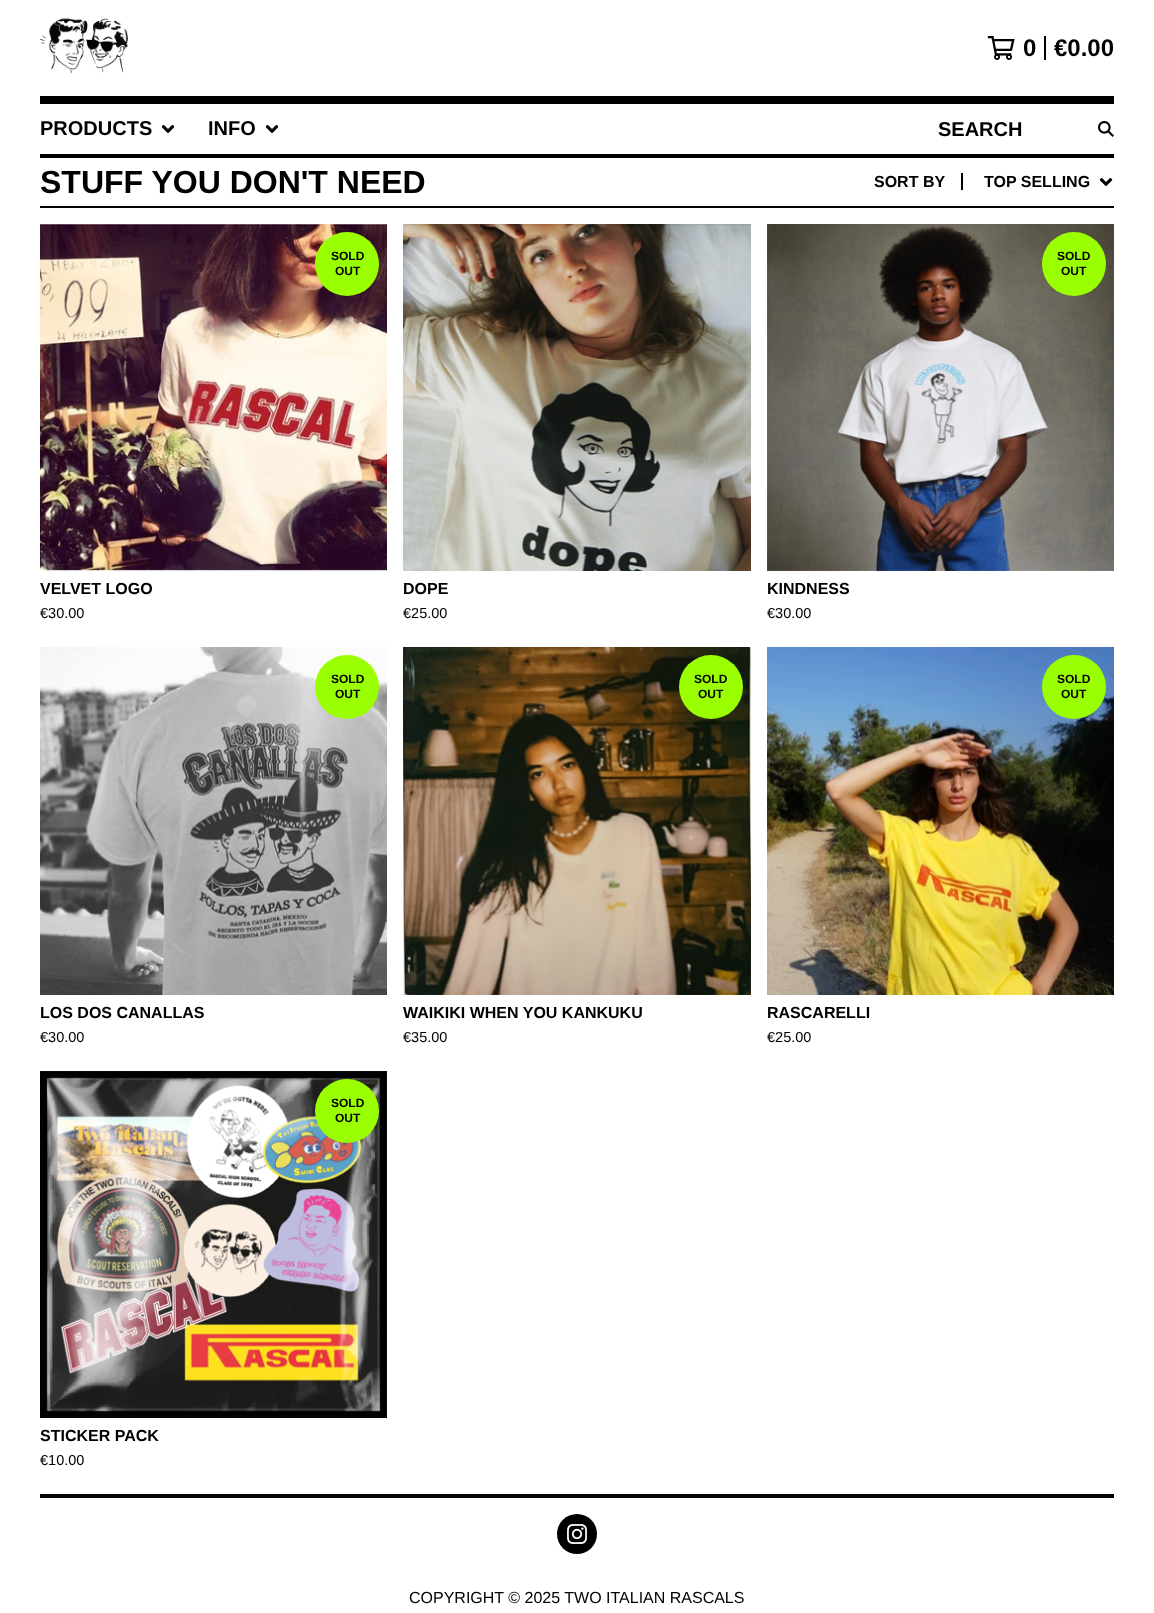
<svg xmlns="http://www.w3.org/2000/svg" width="1154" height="1613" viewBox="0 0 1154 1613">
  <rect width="100%" height="100%" fill="#ffffff"/>
  <rect x="40" y="96" width="1074" height="8" fill="#000000"/>
  <image x="40" y="18" width="88" height="56" href="img1.png"/>
  <image x="987" y="36" width="28" height="24" href="img2.png"/>
  <rect x="1044" y="36" width="2" height="24" fill="#000000"/>
  <text x="1023" y="56" font-family="Liberation Sans" font-size="24" font-weight="bold" fill="#000000">0</text>
  <text x="1054" y="56" font-family="Liberation Sans" font-size="24" font-weight="bold" fill="#000000">€0.00</text>
  <rect x="40" y="154" width="1074" height="4" fill="#000000"/>
  <text x="40" y="135" font-family="Liberation Sans" font-size="20" font-weight="bold" fill="#000000">PRODUCTS</text>
  <image x="161" y="125" width="14" height="8" href="img3.png"/>
  <text x="208" y="135" font-family="Liberation Sans" font-size="20" font-weight="bold" fill="#000000">INFO</text>
  <image x="265" y="125" width="14" height="8" href="img3.png"/>
  <text x="938" y="136" font-family="Liberation Sans" font-size="20" font-weight="bold" fill="#000000">SEARCH</text>
  <image x="1098" y="121" width="16" height="16" href="img4.png"/>
  <rect x="40" y="206" width="1074" height="2" fill="#000000"/>
  <text x="40" y="193" font-family="Liberation Sans" font-size="32" font-weight="bold" fill="#000000">STUFF YOU DON'T NEED</text>
  <text x="874" y="187" font-family="Liberation Sans" font-size="16" font-weight="bold" fill="#000000">SORT BY</text>
  <rect x="961" y="173" width="2" height="17" fill="#000000"/>
  <text x="984" y="187" font-family="Liberation Sans" font-size="16" font-weight="bold" fill="#000000">TOP SELLING</text>
  <image x="1099" y="178" width="14" height="8" href="img3.png"/>
  <image x="40" y="224" width="347" height="347" href="img5.png"/>
  <circle cx="347" cy="264" r="32" fill="#9aff00"/>
  <text x="331" y="260" font-family="Liberation Sans" font-size="12" font-weight="bold" fill="#000000">SOLD</text>
  <text x="335" y="275" font-family="Liberation Sans" font-size="12" font-weight="bold" fill="#000000">OUT</text>
  <text x="40" y="594" font-family="Liberation Sans" font-size="16" font-weight="bold" fill="#000000">VELVET LOGO</text>
  <text x="40" y="618" font-family="Liberation Sans" font-size="14.5" fill="#000000">€30.00</text>
  <image x="403" y="224" width="348" height="347" href="img6.png"/>
  <text x="403" y="594" font-family="Liberation Sans" font-size="16" font-weight="bold" fill="#000000">DOPE</text>
  <text x="403" y="618" font-family="Liberation Sans" font-size="14.5" fill="#000000">€25.00</text>
  <image x="767" y="224" width="347" height="347" href="img7.png"/>
  <circle cx="1074" cy="264" r="32" fill="#9aff00"/>
  <text x="1057" y="260" font-family="Liberation Sans" font-size="12" font-weight="bold" fill="#000000">SOLD</text>
  <text x="1061" y="275" font-family="Liberation Sans" font-size="12" font-weight="bold" fill="#000000">OUT</text>
  <text x="767" y="594" font-family="Liberation Sans" font-size="16" font-weight="bold" fill="#000000">KINDNESS</text>
  <text x="767" y="618" font-family="Liberation Sans" font-size="14.5" fill="#000000">€30.00</text>
  <image x="40" y="647" width="347" height="348" href="img8.png"/>
  <circle cx="347" cy="687" r="32" fill="#9aff00"/>
  <text x="331" y="683" font-family="Liberation Sans" font-size="12" font-weight="bold" fill="#000000">SOLD</text>
  <text x="335" y="698" font-family="Liberation Sans" font-size="12" font-weight="bold" fill="#000000">OUT</text>
  <text x="40" y="1018" font-family="Liberation Sans" font-size="16" font-weight="bold" fill="#000000">LOS DOS CANALLAS</text>
  <text x="40" y="1042" font-family="Liberation Sans" font-size="14.5" fill="#000000">€30.00</text>
  <image x="403" y="647" width="348" height="348" href="img9.png"/>
  <circle cx="711" cy="687" r="32" fill="#9aff00"/>
  <text x="694" y="683" font-family="Liberation Sans" font-size="12" font-weight="bold" fill="#000000">SOLD</text>
  <text x="698" y="698" font-family="Liberation Sans" font-size="12" font-weight="bold" fill="#000000">OUT</text>
  <text x="403" y="1018" font-family="Liberation Sans" font-size="16" font-weight="bold" fill="#000000">WAIKIKI WHEN YOU KANKUKU</text>
  <text x="403" y="1042" font-family="Liberation Sans" font-size="14.5" fill="#000000">€35.00</text>
  <image x="767" y="647" width="347" height="348" href="img10.png"/>
  <circle cx="1074" cy="687" r="32" fill="#9aff00"/>
  <text x="1057" y="683" font-family="Liberation Sans" font-size="12" font-weight="bold" fill="#000000">SOLD</text>
  <text x="1061" y="698" font-family="Liberation Sans" font-size="12" font-weight="bold" fill="#000000">OUT</text>
  <text x="767" y="1018" font-family="Liberation Sans" font-size="16" font-weight="bold" fill="#000000">RASCARELLI</text>
  <text x="767" y="1042" font-family="Liberation Sans" font-size="14.5" fill="#000000">€25.00</text>
  <image x="40" y="1071" width="347" height="347" href="img11.png"/>
  <circle cx="347" cy="1111" r="32" fill="#9aff00"/>
  <text x="331" y="1107" font-family="Liberation Sans" font-size="12" font-weight="bold" fill="#000000">SOLD</text>
  <text x="335" y="1122" font-family="Liberation Sans" font-size="12" font-weight="bold" fill="#000000">OUT</text>
  <text x="40" y="1441" font-family="Liberation Sans" font-size="16" font-weight="bold" fill="#000000">STICKER PACK</text>
  <text x="40" y="1465" font-family="Liberation Sans" font-size="14.5" fill="#000000">€10.00</text>
  <rect x="40" y="1494" width="1074" height="4" fill="#000000"/>
  <circle cx="577" cy="1534" r="20" fill="#000000"/>
  <image x="567" y="1524" width="20" height="20" href="img12.png"/>
  <text x="409" y="1603" font-family="Liberation Sans" font-size="16" fill="#000000">COPYRIGHT © 2025 TWO ITALIAN RASCALS</text>
</svg>
